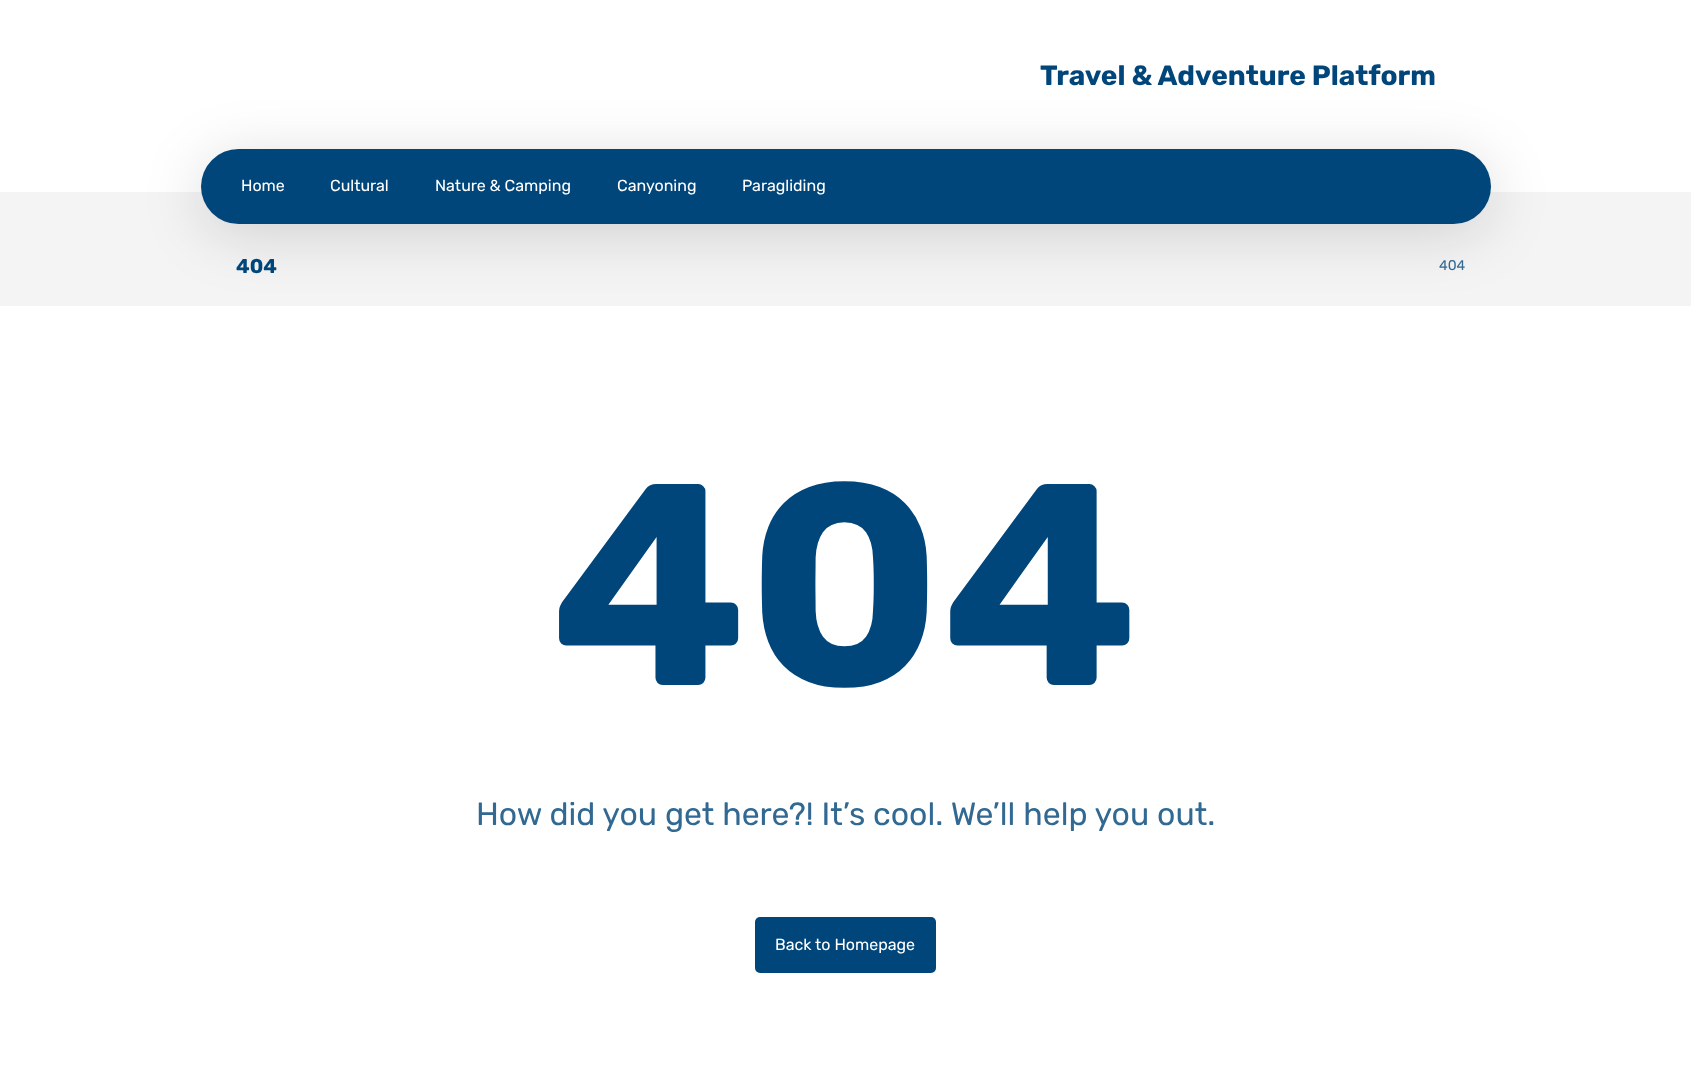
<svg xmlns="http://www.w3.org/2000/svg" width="1691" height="1067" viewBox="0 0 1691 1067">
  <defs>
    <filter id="blur1" x="-50%" y="-200%" width="200%" height="500%"><feGaussianBlur stdDeviation="30"/></filter>
  </defs>
  <rect width="100%" height="100%" fill="#ffffff"/>
  <text x="1040" y="85" font-family="Rubik" font-size="28" font-weight="bold" fill="#00467a">Travel &amp; Adventure Platform</text>
  <rect x="0" y="192" width="1691" height="114" fill="#f4f4f4"/>
  <rect x="201" y="159" width="1290" height="75" rx="37.5" fill="#000000" fill-opacity="0.15" filter="url(#blur1)"/>
  <rect x="201" y="149" width="1290" height="75" rx="37.5" fill="#00467a"/>
  <text x="241" y="191" font-family="Rubik" font-size="16" fill="#ffffff">Home</text>
  <text x="330" y="191" font-family="Rubik" font-size="16" fill="#ffffff">Cultural</text>
  <text x="435" y="191" font-family="Rubik" font-size="16" fill="#ffffff">Nature &amp; Camping</text>
  <text x="617" y="191" font-family="Rubik" font-size="16" fill="#ffffff">Canyoning</text>
  <text x="742" y="191" font-family="Rubik" font-size="16" fill="#ffffff">Paragliding</text>
  <text x="236" y="273" font-family="Rubik" font-size="20" font-weight="bold" fill="#00467a">404</text>
  <text x="1439" y="270" font-family="Rubik" font-size="14" fill="#316992">404</text>
  <text x="551" y="685" font-family="Rubik" font-size="287" font-weight="bold" fill="#00467a">404</text>
  <text x="476" y="825" font-family="Rubik" font-size="32" fill="#316992">How did you get here?! It’s cool. We’ll help you out.</text>
  <rect x="755" y="917" width="181" height="56" rx="5" fill="#00467a"/>
  <text x="775" y="950" font-family="Rubik" font-size="16" fill="#ffffff">Back to Homepage</text>
</svg>
